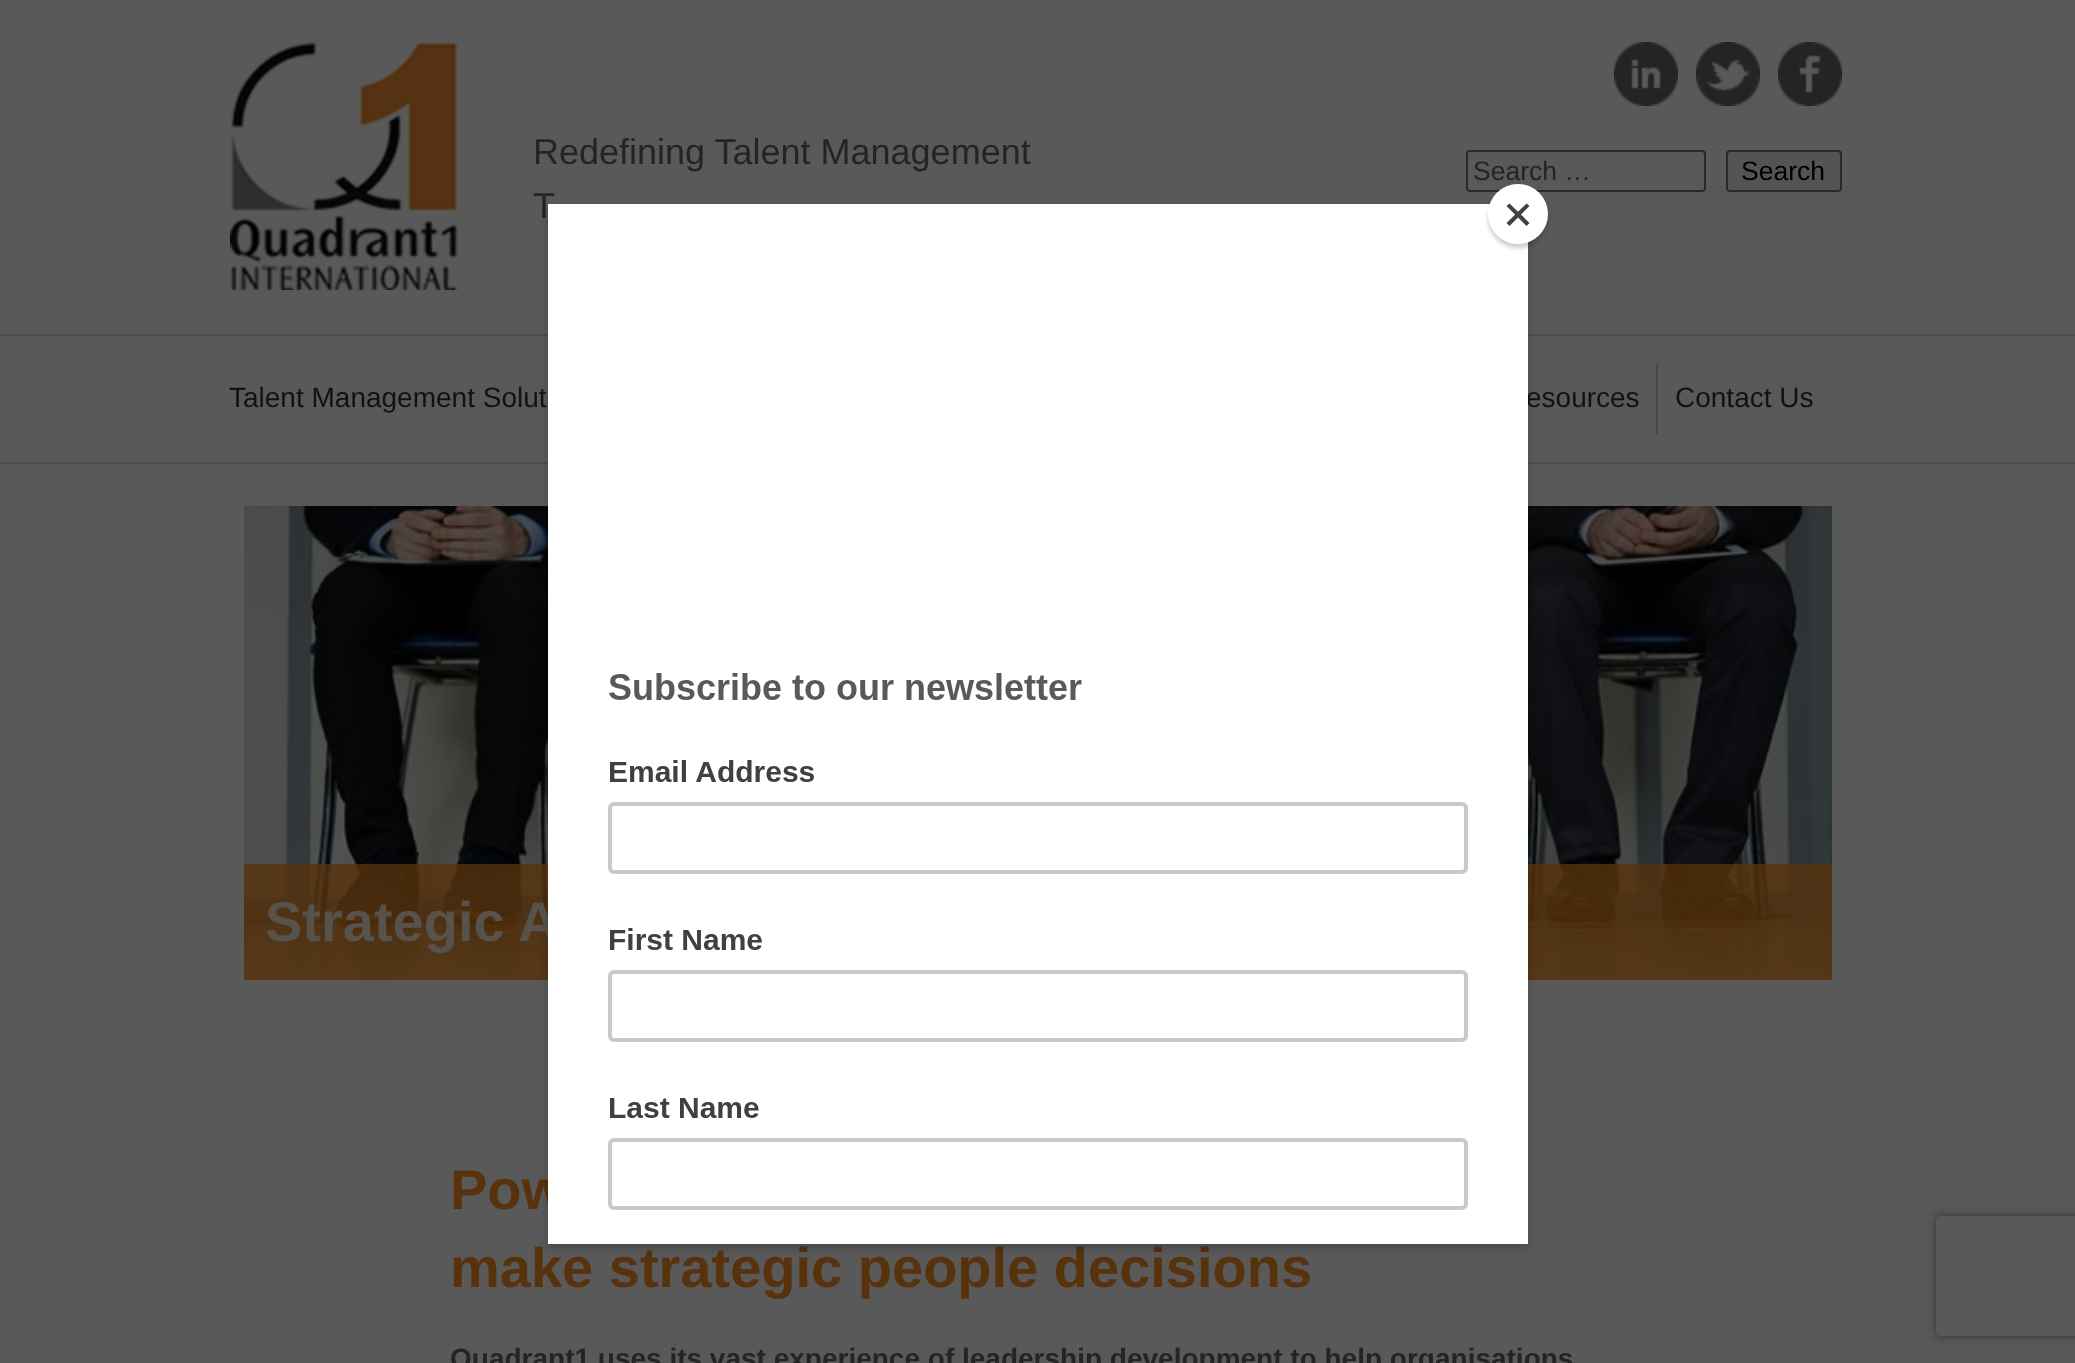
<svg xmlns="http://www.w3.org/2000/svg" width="2075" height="1363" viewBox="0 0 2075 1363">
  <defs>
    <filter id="blur1" x="-50%" y="-200%" width="200%" height="500%"><feGaussianBlur stdDeviation="4"/></filter>
    <filter id="blur2" x="-50%" y="-200%" width="200%" height="500%"><feGaussianBlur stdDeviation="2"/></filter>
    <clipPath id="clip1"><path d="M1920 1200H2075V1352H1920ZM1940 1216H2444C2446 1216 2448 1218 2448 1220V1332C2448 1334 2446 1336 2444 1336H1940C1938 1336 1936 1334 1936 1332V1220C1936 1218 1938 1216 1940 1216Z" clip-rule="evenodd"/></clipPath>
    <filter id="blur3" x="-50%" y="-200%" width="200%" height="500%"><feGaussianBlur stdDeviation="5"/></filter>
  </defs>
  <rect width="100%" height="100%" fill="#595959"/>
  <image x="230" y="42" width="228" height="248" href="img1.png"/>
  <text x="533" y="164" font-family="Liberation Sans" font-size="36" fill="#242424">Redefining Talent Management</text>
  <text x="533" y="218" font-family="Liberation Sans" font-size="36" fill="#242424">T</text>
  <image x="1614" y="42" width="64" height="64" href="img2.png"/>
  <image x="1696" y="42" width="64" height="64" href="img3.png"/>
  <image x="1778" y="42" width="64" height="64" href="img4.png"/>
  <rect x="1467" y="151" width="238" height="40" rx="3" fill="none" stroke="#292929" stroke-width="2"/>
  <text x="1473" y="180" font-family="Liberation Sans" font-size="26.5" fill="#242424">Search …</text>
  <rect x="1727" y="151" width="114" height="40" rx="3" fill="#545454" stroke="#292929" stroke-width="2"/>
  <text x="1741" y="180" font-family="Liberation Sans" font-size="26.5" fill="#000000">Search</text>
  <rect x="0" y="334" width="2075" height="2" fill="#4b4b4b"/>
  <rect x="0" y="462" width="2075" height="2" fill="#4b4b4b"/>
  <text x="229" y="407" font-family="Liberation Sans" font-size="28" fill="#121212">Talent Management Solut</text>
  <text x="1526" y="407" font-family="Liberation Sans" font-size="28" fill="#121212">esources</text>
  <rect x="1656" y="364" width="2" height="70" fill="#474747"/>
  <text x="1675" y="407" font-family="Liberation Sans" font-size="28" fill="#121212">Contact Us</text>
  <image x="244" y="506" width="1588" height="474" href="img5.png"/>
  <rect x="244" y="864" width="1588" height="116" fill="#57320c" fill-opacity="0.8"/>
  <text x="265" y="941" font-family="Liberation Sans" font-size="56" font-weight="bold" fill="#57524b">Strategic A</text>
  <text x="450" y="1209" font-family="Liberation Sans" font-size="56" font-weight="bold" fill="#57320c">Pow</text>
  <text x="450" y="1287" font-family="Liberation Sans" font-size="56" font-weight="bold" fill="#57320c">make strategic people decisions</text>
  <text x="450" y="1368" font-family="Liberation Sans" font-size="28" font-weight="bold" fill="#242424">Quadrant1 uses its vast experience of leadership development to help organisations</text>
  <rect x="548" y="208" width="980" height="1040" fill="#000000" fill-opacity="0.2" filter="url(#blur1)"/>
  <image x="548" y="204" width="980" height="1040" href="img6.png"/>
  <rect x="1488" y="188" width="60" height="60" rx="30" fill="#000000" fill-opacity="0.2" filter="url(#blur2)"/>
  <circle cx="1518" cy="214" r="30" fill="#ffffff"/>
  <path d="M1526.5 203.5L1529.5 206L1509.5 226L1506.5 223Z" fill="#414141"/>
  <path d="M1506.5 206L1509.5 203.5L1529.5 223L1526.5 226Z" fill="#414141"/>
  <g clip-path="url(#clip1)">
    <rect x="1936" y="1216" width="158" height="120" rx="4" fill="#2d2d2d" filter="url(#blur3)"/>
  </g>
</svg>
